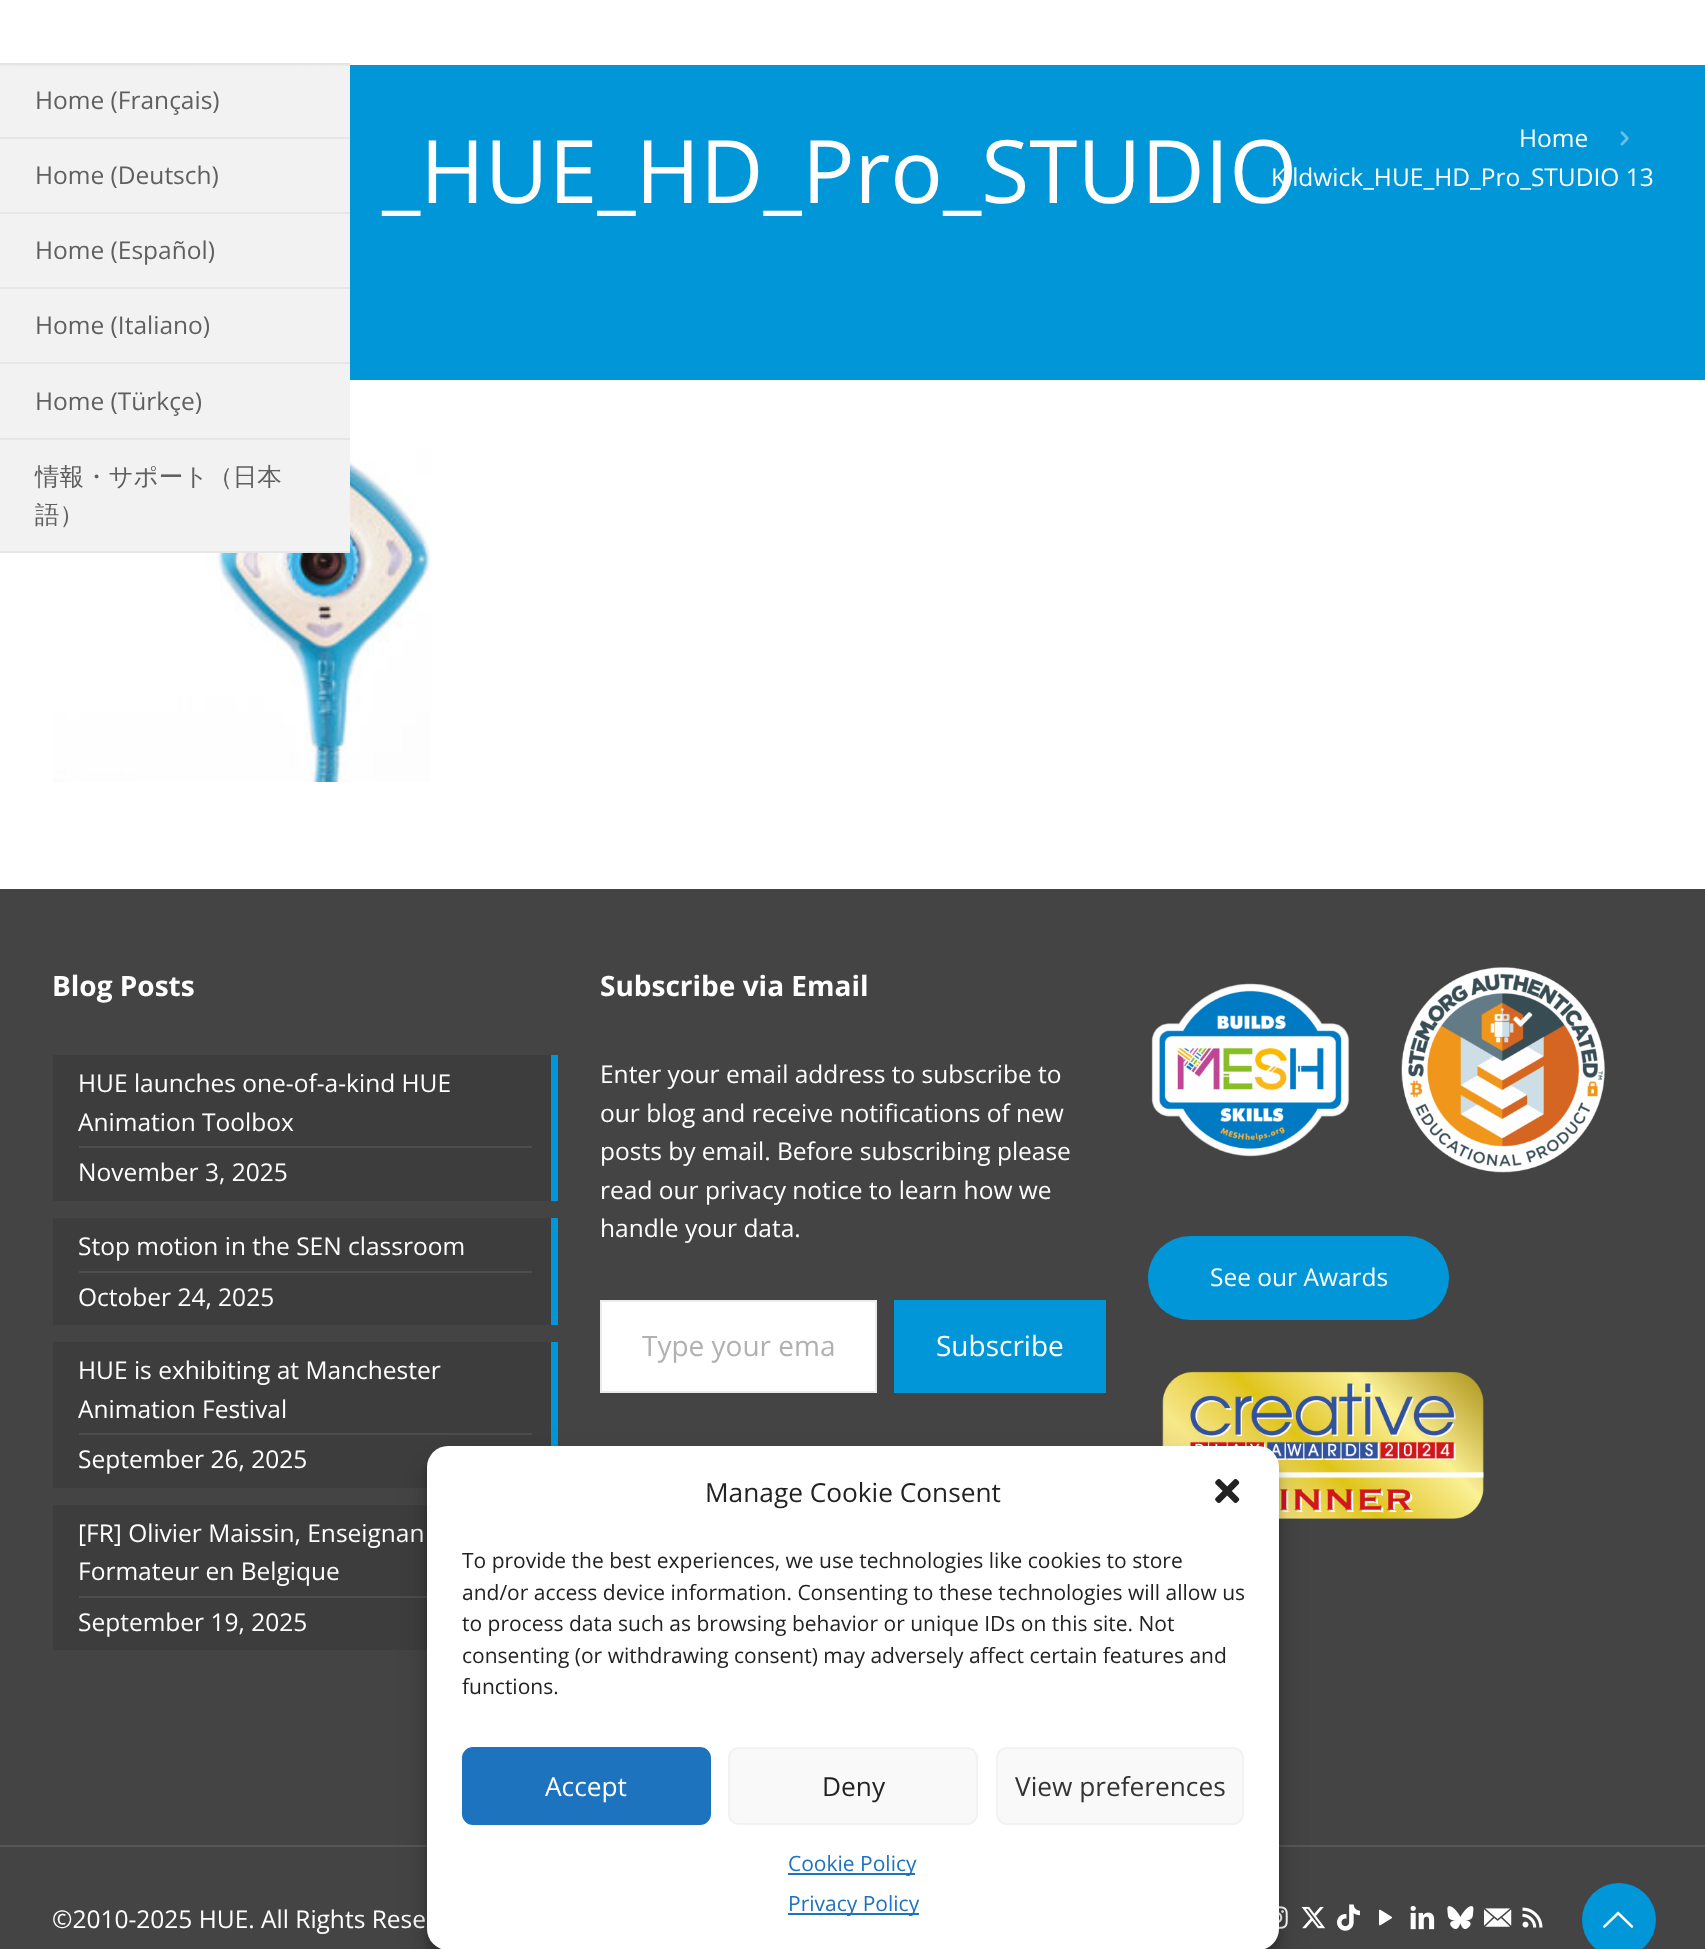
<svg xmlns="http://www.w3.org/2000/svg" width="1705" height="1949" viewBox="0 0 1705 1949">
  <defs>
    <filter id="blur1" x="-50%" y="-200%" width="200%" height="500%"><feGaussianBlur stdDeviation="5"/></filter>
    <filter id="blur2" x="-50%" y="-200%" width="200%" height="500%"><feGaussianBlur stdDeviation="17.5"/></filter>
  </defs>
  <rect width="100%" height="100%" fill="#ffffff"/>
  <rect x="350" y="65" width="1355" height="315" fill="#0096d7"/>
  <image x="53" y="448" width="378" height="334" href="img3.png"/>
  <rect x="0" y="63" width="350" height="488" fill="#f2f2f2"/>
  <image x="0" y="63" width="350" height="3" href="img1.png"/>
  <rect x="0" y="137" width="350" height="2" fill="#e6e6e6"/>
  <text x="35" y="109" font-family="Open Sans" font-size="24.5" fill="#5f5f5f">Home (Français)</text>
  <rect x="0" y="212" width="350" height="2" fill="#e6e6e6"/>
  <text x="35" y="184" font-family="Open Sans" font-size="24.5" fill="#5f5f5f">Home (Deutsch)</text>
  <rect x="0" y="287" width="350" height="2" fill="#e6e6e6"/>
  <text x="35" y="259" font-family="Open Sans" font-size="24.5" fill="#5f5f5f">Home (Español)</text>
  <rect x="0" y="362" width="350" height="2" fill="#e6e6e6"/>
  <text x="35" y="334" font-family="Open Sans" font-size="24.5" fill="#5f5f5f">Home (Italiano)</text>
  <rect x="0" y="438" width="350" height="2" fill="#e6e6e6"/>
  <text x="35" y="410" font-family="Open Sans" font-size="24.5" fill="#5f5f5f">Home (Türkçe)</text>
  <rect x="0" y="551" width="350" height="2" fill="#e6e6e6"/>
  <text x="35" y="485" font-family="WenQuanYi Zen Hei" font-size="24.5" font-weight="500" fill="#5f5f5f">情報・サポート（日本</text>
  <text x="35" y="523" font-family="WenQuanYi Zen Hei" font-size="24.5" font-weight="500" fill="#5f5f5f">語）</text>
  <text x="382" y="203" font-family="Open Sans" font-size="87.5" fill="#ffffff">_HUE_HD_Pro_STUDIO</text>
  <text x="1519" y="147" font-family="Open Sans" font-size="24.5" fill="#ffffff">Home</text>
  <image x="1620" y="131" width="9" height="15" href="img2.png"/>
  <text x="1271" y="186" font-family="Open Sans" font-size="24.5" fill="#ffffff">Kildwick_HUE_HD_Pro_STUDIO 13</text>
  <rect x="0" y="889" width="1705" height="1060" fill="#444444"/>
  <text x="52" y="996" font-family="Open Sans" font-size="28" font-weight="bold" fill="#ffffff">Blog Posts</text>
  <rect x="53" y="1055" width="498" height="146" fill="#3d3d3d"/>
  <rect x="79" y="1146" width="453" height="2" fill="#4d4d4d"/>
  <text x="78" y="1092" font-family="Open Sans" font-size="24.5" fill="#ffffff">HUE launches one-of-a-kind HUE</text>
  <text x="78" y="1131" font-family="Open Sans" font-size="24.5" fill="#ffffff">Animation Toolbox</text>
  <rect x="551" y="1055" width="7" height="146" fill="#0096d7"/>
  <text x="78" y="1181" font-family="Open Sans" font-size="24.5" fill="#ffffff">November 3, 2025</text>
  <rect x="53" y="1218" width="498" height="107" fill="#3d3d3d"/>
  <rect x="79" y="1271" width="453" height="2" fill="#4d4d4d"/>
  <text x="78" y="1255" font-family="Open Sans" font-size="24.5" fill="#ffffff">Stop motion in the SEN classroom</text>
  <rect x="551" y="1218" width="7" height="107" fill="#0096d7"/>
  <text x="78" y="1306" font-family="Open Sans" font-size="24.5" fill="#ffffff">October 24, 2025</text>
  <rect x="53" y="1342" width="498" height="146" fill="#3d3d3d"/>
  <rect x="79" y="1433" width="453" height="2" fill="#4d4d4d"/>
  <text x="78" y="1379" font-family="Open Sans" font-size="24.5" fill="#ffffff">HUE is exhibiting at Manchester</text>
  <text x="78" y="1418" font-family="Open Sans" font-size="24.5" fill="#ffffff">Animation Festival</text>
  <rect x="551" y="1342" width="7" height="104" fill="#0096d7"/>
  <text x="78" y="1468" font-family="Open Sans" font-size="24.5" fill="#ffffff">September 26, 2025</text>
  <rect x="53" y="1505" width="374" height="145" fill="#3d3d3d"/>
  <rect x="79" y="1596" width="348" height="2" fill="#4d4d4d"/>
  <text x="78" y="1542" font-family="Open Sans" font-size="24.5" fill="#ffffff">[FR] Olivier Maissin, Enseignan</text>
  <text x="78" y="1580" font-family="Open Sans" font-size="24.5" fill="#ffffff">Formateur en Belgique</text>
  <text x="78" y="1631" font-family="Open Sans" font-size="24.5" fill="#ffffff">September 19, 2025</text>
  <text x="600" y="996" font-family="Open Sans" font-size="28" font-weight="bold" fill="#ffffff">Subscribe via Email</text>
  <text x="600" y="1083" font-family="Open Sans" font-size="24.5" fill="#ffffff">Enter your email address to subscribe to</text>
  <text x="600" y="1122" font-family="Open Sans" font-size="24.5" fill="#ffffff">our blog and receive notifications of new</text>
  <text x="600" y="1160" font-family="Open Sans" font-size="24.5" fill="#ffffff">posts by email. Before subscribing please</text>
  <text x="600" y="1199" font-family="Open Sans" font-size="24.5" fill="#ffffff">read our privacy notice to learn how we</text>
  <text x="600" y="1237" font-family="Open Sans" font-size="24.5" fill="#ffffff">handle your data.</text>
  <rect x="601" y="1301" width="275" height="91" fill="#ffffff" stroke="#ebebeb" stroke-width="2"/>
  <text x="642" y="1356" font-family="Open Sans" font-size="28" fill="#b1b1b1">Type your ema</text>
  <rect x="894" y="1300" width="212" height="93" fill="#0096d7"/>
  <text x="936" y="1356" font-family="Open Sans" font-size="28" fill="#ffffff">Subscribe</text>
  <image x="1151" y="983" width="199" height="174" href="img4.png"/>
  <image x="1401" y="967" width="204" height="206" href="img5.png"/>
  <rect x="1148" y="1236" width="301" height="84" rx="42" fill="#0096d7"/>
  <text x="1210" y="1286" font-family="Open Sans" font-size="24.5" fill="#ffffff">See our Awards</text>
  <image x="1162" y="1371" width="322" height="148" href="img6.png"/>
  <rect x="0" y="1845" width="1705" height="2" fill="#575757"/>
  <text x="52" y="1928" font-family="Open Sans" font-size="24.5" fill="#ffffff">©2010-2025 HUE. All Rights Rese</text>
  <image x="1279" y="1906" width="9" height="23" href="img7.png"/>
  <image x="1301" y="1906" width="25" height="23" href="img8.png"/>
  <image x="1337" y="1904" width="23" height="27" href="img9.png"/>
  <image x="1379" y="1909" width="14" height="17" href="img10.png"/>
  <image x="1410" y="1905" width="25" height="25" href="img11.png"/>
  <image x="1447" y="1906" width="27" height="23" href="img12.png"/>
  <image x="1484" y="1908" width="28" height="19" href="img13.png"/>
  <image x="1522" y="1907" width="21" height="21" href="img14.png"/>
  <circle cx="1619" cy="1920" r="37" fill="#0096d7"/>
  <image x="1603" y="1911" width="31" height="17" href="img15.png"/>
  <rect x="427" y="1456" width="852" height="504" rx="21" fill="#000000" fill-opacity="0.23" filter="url(#blur1)"/>
  <rect x="427" y="1463" width="852" height="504" rx="21" fill="#000000" fill-opacity="0.19" filter="url(#blur2)"/>
  <rect x="427" y="1446" width="852" height="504" rx="21" fill="#ffffff"/>
  <text x="705" y="1502" font-family="Open Sans" font-size="26.25" fill="#222222">Manage Cookie Consent</text>
  <image x="1215" y="1479" width="25" height="24" href="img16.png"/>
  <text x="462" y="1568" font-family="Open Sans" font-size="21" fill="#222222">To provide the best experiences, we use technologies like cookies to store</text>
  <text x="462" y="1600" font-family="Open Sans" font-size="21" fill="#222222">and/or access device information. Consenting to these technologies will allow us</text>
  <text x="462" y="1631" font-family="Open Sans" font-size="21" fill="#222222">to process data such as browsing behavior or unique IDs on this site. Not</text>
  <text x="462" y="1663" font-family="Open Sans" font-size="21" fill="#222222">consenting (or withdrawing consent) may adversely affect certain features and</text>
  <text x="462" y="1694" font-family="Open Sans" font-size="21" fill="#222222">functions.</text>
  <rect x="463" y="1748" width="247" height="76" rx="10" fill="#1e73be" stroke="#1e73be" stroke-width="2"/>
  <text x="545" y="1796" font-family="Open Sans" font-size="26.25" fill="#ffffff">Accept</text>
  <rect x="729" y="1748" width="248" height="76" rx="10" fill="#f9f9f9" stroke="#f2f2f2" stroke-width="2"/>
  <text x="822" y="1796" font-family="Open Sans" font-size="26.25" fill="#222222">Deny</text>
  <rect x="997" y="1748" width="246" height="76" rx="10" fill="#f9f9f9" stroke="#f2f2f2" stroke-width="2"/>
  <text x="1015" y="1796" font-family="Open Sans" font-size="26.25" fill="#333333">View preferences</text>
  <rect x="788" y="1873" width="127" height="2" fill="#1e73be"/>
  <text x="788" y="1871" font-family="Open Sans" font-size="21" fill="#1e73be">Cookie Policy</text>
  <rect x="788" y="1913" width="131" height="2" fill="#1e73be"/>
  <text x="788" y="1911" font-family="Open Sans" font-size="21" fill="#1e73be">Privacy Policy</text>
</svg>
